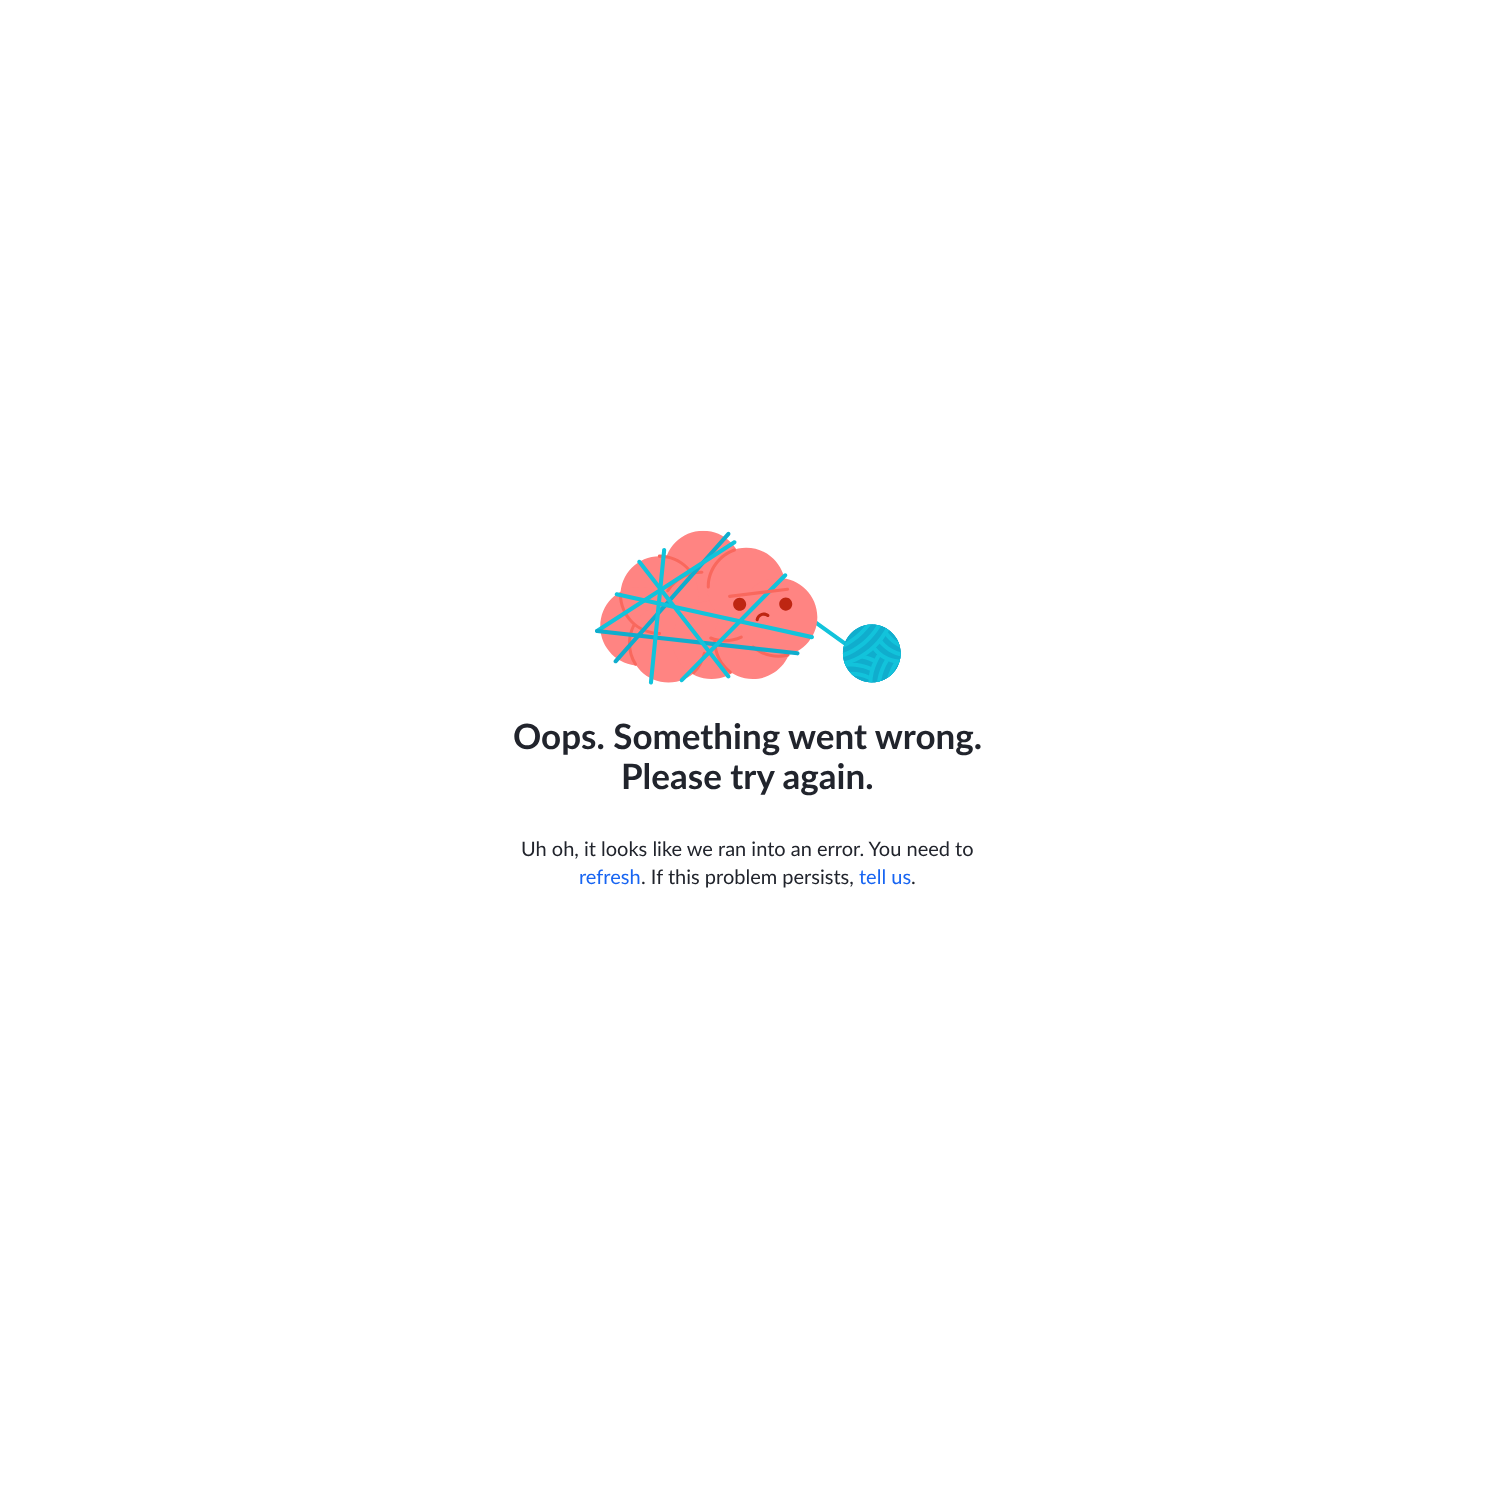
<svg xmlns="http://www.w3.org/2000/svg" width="1495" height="1495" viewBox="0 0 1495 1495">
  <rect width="100%" height="100%" fill="#ffffff"/>
  <image x="595" y="530" width="306" height="155" href="img1.png"/>
  <text x="513" y="749" font-family="Lato" font-size="35" font-weight="bold" fill="#21242c">Oops. Something went wrong.</text>
  <text x="621" y="789" font-family="Lato" font-size="35" font-weight="bold" fill="#21242c">Please try again.</text>
  <text x="521" y="856" font-family="Lato" font-size="20" fill="#21242c">Uh oh, it looks like we ran into an error. You need to</text>
  <text x="579" y="884" font-family="Lato" font-size="20" fill="#1865f2">refresh</text>
  <text x="641" y="884" font-family="Lato" font-size="20" fill="#21242c">. If this problem persists,</text>
  <text x="859" y="884" font-family="Lato" font-size="20" fill="#1865f2">tell us</text>
  <text x="911" y="884" font-family="Lato" font-size="20" fill="#21242c">.</text>
</svg>
